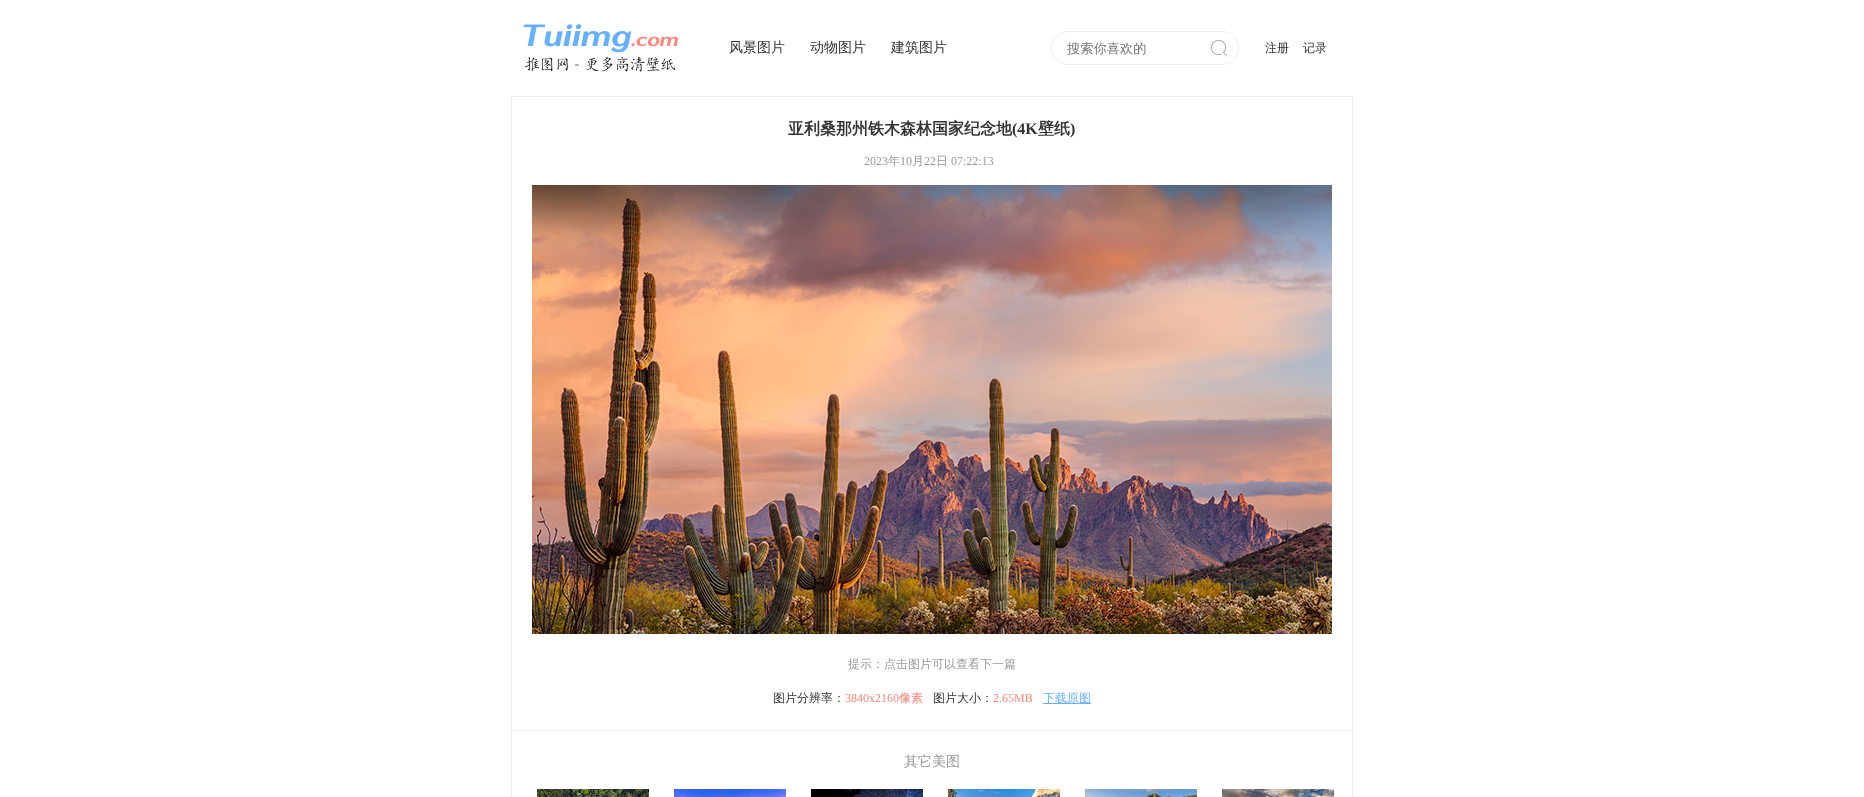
<svg xmlns="http://www.w3.org/2000/svg" width="1864" height="797" viewBox="0 0 1864 797">
  <rect width="100%" height="100%" fill="#ffffff"/>
  <image x="523" y="24" width="155" height="48" href="img1.png"/>
  <text x="729" y="52" font-family="WenQuanYi Zen Hei" font-size="14" font-weight="500" fill="#333333">风景图片</text>
  <text x="810" y="52" font-family="WenQuanYi Zen Hei" font-size="14" font-weight="500" fill="#333333">动物图片</text>
  <text x="891" y="52" font-family="WenQuanYi Zen Hei" font-size="14" font-weight="500" fill="#333333">建筑图片</text>
  <rect x="1051.5" y="31.5" width="187" height="33" rx="16.5" fill="none" stroke="#eeeeee"/>
  <text x="1067" y="53" font-family="WenQuanYi Zen Hei" font-size="13.25" font-weight="500" fill="#757575">搜索你喜欢的</text>
  <image x="1211" y="40" width="16" height="17" href="img2.png"/>
  <text x="1265" y="52" font-family="WenQuanYi Zen Hei" font-size="12" font-weight="500" fill="#333333">注册</text>
  <text x="1303" y="52" font-family="WenQuanYi Zen Hei" font-size="12" font-weight="500" fill="#333333">记录</text>
  <rect x="511" y="96" width="842" height="1" fill="#eeeeee"/>
  <rect x="1352" y="96" width="1" height="701" fill="#eeeeee"/>
  <rect x="511" y="96" width="1" height="701" fill="#eeeeee"/>
  <text x="788" y="134" font-family="WenQuanYi Zen Hei" font-size="16" font-weight="bold" fill="#333333">亚利桑那州铁木森林国家纪念地</text>
  <text x="1012" y="134" font-family="Liberation Serif" font-size="16" font-weight="bold" fill="#333333">(4K</text>
  <text x="1038" y="134" font-family="WenQuanYi Zen Hei" font-size="16" font-weight="bold" fill="#333333">壁纸</text>
  <text x="1070" y="134" font-family="Liberation Serif" font-size="16" font-weight="bold" fill="#333333">)</text>
  <text x="864" y="165" font-family="Liberation Serif" font-size="12" fill="#999999">2023</text>
  <text x="888" y="165" font-family="WenQuanYi Zen Hei" font-size="12" font-weight="500" fill="#999999">年</text>
  <text x="900" y="165" font-family="Liberation Serif" font-size="12" fill="#999999">10</text>
  <text x="912" y="165" font-family="WenQuanYi Zen Hei" font-size="12" font-weight="500" fill="#999999">月</text>
  <text x="924" y="165" font-family="Liberation Serif" font-size="12" fill="#999999">22</text>
  <text x="936" y="165" font-family="WenQuanYi Zen Hei" font-size="12" font-weight="500" fill="#999999">日</text>
  <text x="951" y="165" font-family="Liberation Serif" font-size="12" fill="#999999">07:22:13</text>
  <image x="532" y="185" width="800" height="449" href="img3.png"/>
  <text x="848" y="668" font-family="WenQuanYi Zen Hei" font-size="12" font-weight="500" fill="#999999">提示：点击图片可以查看下一篇</text>
  <text x="773" y="702" font-family="WenQuanYi Zen Hei" font-size="12" font-weight="500" fill="#333333">图片分辨率：</text>
  <text x="845" y="702" font-family="Liberation Serif" font-size="12" fill="#fc857d">3840x2160</text>
  <text x="899" y="702" font-family="WenQuanYi Zen Hei" font-size="12" font-weight="500" fill="#fc857d">像素</text>
  <text x="933" y="702" font-family="WenQuanYi Zen Hei" font-size="12" font-weight="500" fill="#333333">图片大小：</text>
  <text x="993" y="702" font-family="Liberation Serif" font-size="12" fill="#fc857d">2.65MB</text>
  <rect x="1043" y="703" width="48" height="1" fill="#66b1ff"/>
  <text x="1043" y="702" font-family="WenQuanYi Zen Hei" font-size="12" font-weight="500" fill="#66b1ff">下载原图</text>
  <path d="M512 730.5H1352" fill="none" stroke="#dfdfdf" stroke-dasharray="1 1"/>
  <text x="904" y="766" font-family="WenQuanYi Zen Hei" font-size="14" font-weight="500" fill="#999999">其它美图</text>
  <image x="537" y="789" width="112" height="8" href="img4.png"/>
  <image x="674" y="789" width="112" height="8" href="img5.png"/>
  <image x="811" y="789" width="112" height="8" href="img6.png"/>
  <image x="948" y="789" width="112" height="8" href="img7.png"/>
  <image x="1085" y="789" width="112" height="8" href="img8.png"/>
  <image x="1222" y="789" width="112" height="8" href="img9.png"/>
</svg>
